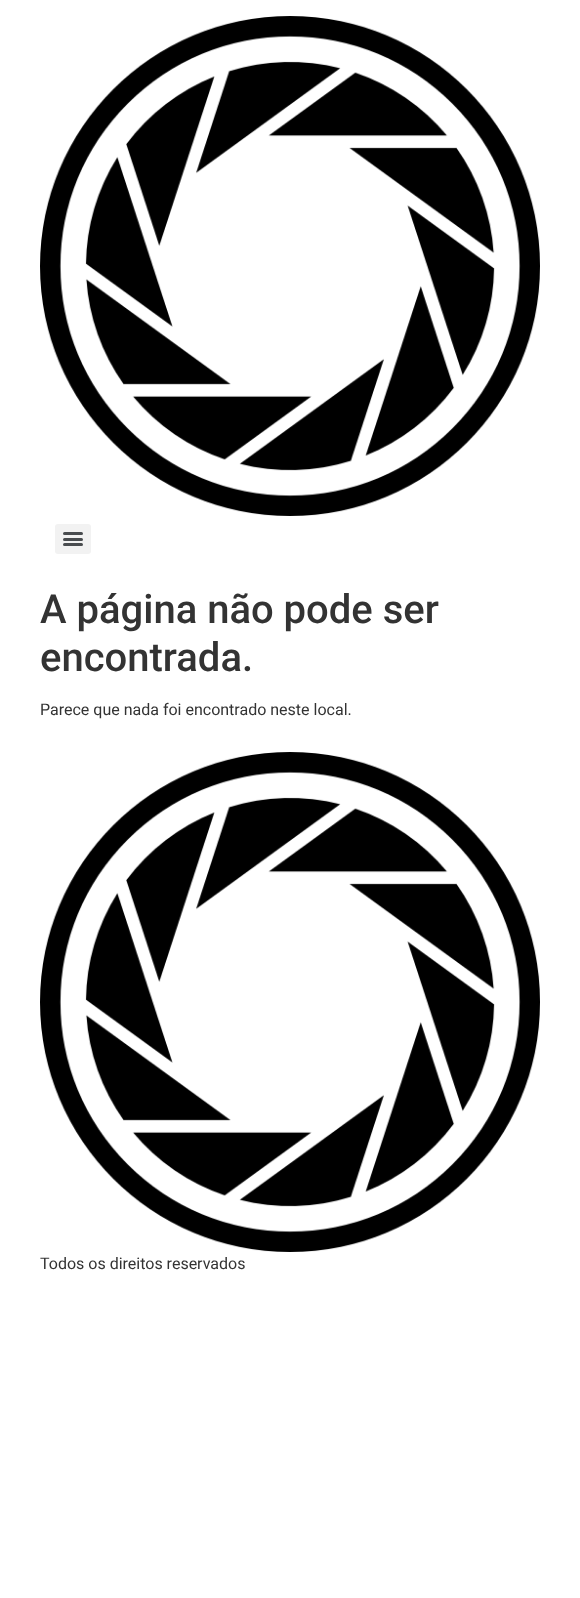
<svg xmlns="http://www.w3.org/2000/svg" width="580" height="1598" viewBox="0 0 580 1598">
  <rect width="100%" height="100%" fill="#ffffff"/>
  <image x="40" y="16" width="500" height="500" href="img1.png"/>
  <rect x="55" y="524" width="36" height="30" rx="3" fill="#f2f2f2"/>
  <rect x="63" y="538" width="20" height="3" rx="1.5" fill="#494c4f"/>
  <rect x="63" y="532" width="20" height="3" rx="1.5" fill="#494c4f"/>
  <rect x="63" y="543" width="20" height="3" rx="1.5" fill="#494c4f"/>
  <text x="40" y="623" font-family="Roboto" font-size="40" font-weight="500" fill="#333333">A página não pode ser</text>
  <text x="40" y="671" font-family="Roboto" font-size="40" font-weight="500" fill="#333333">encontrada.</text>
  <text x="40" y="715" font-family="Roboto" font-size="16" fill="#333333">Parece que nada foi encontrado neste local.</text>
  <image x="40" y="752" width="500" height="500" href="img1.png"/>
  <text x="40" y="1269" font-family="Roboto" font-size="16" fill="#333333">Todos os direitos reservados</text>
</svg>
